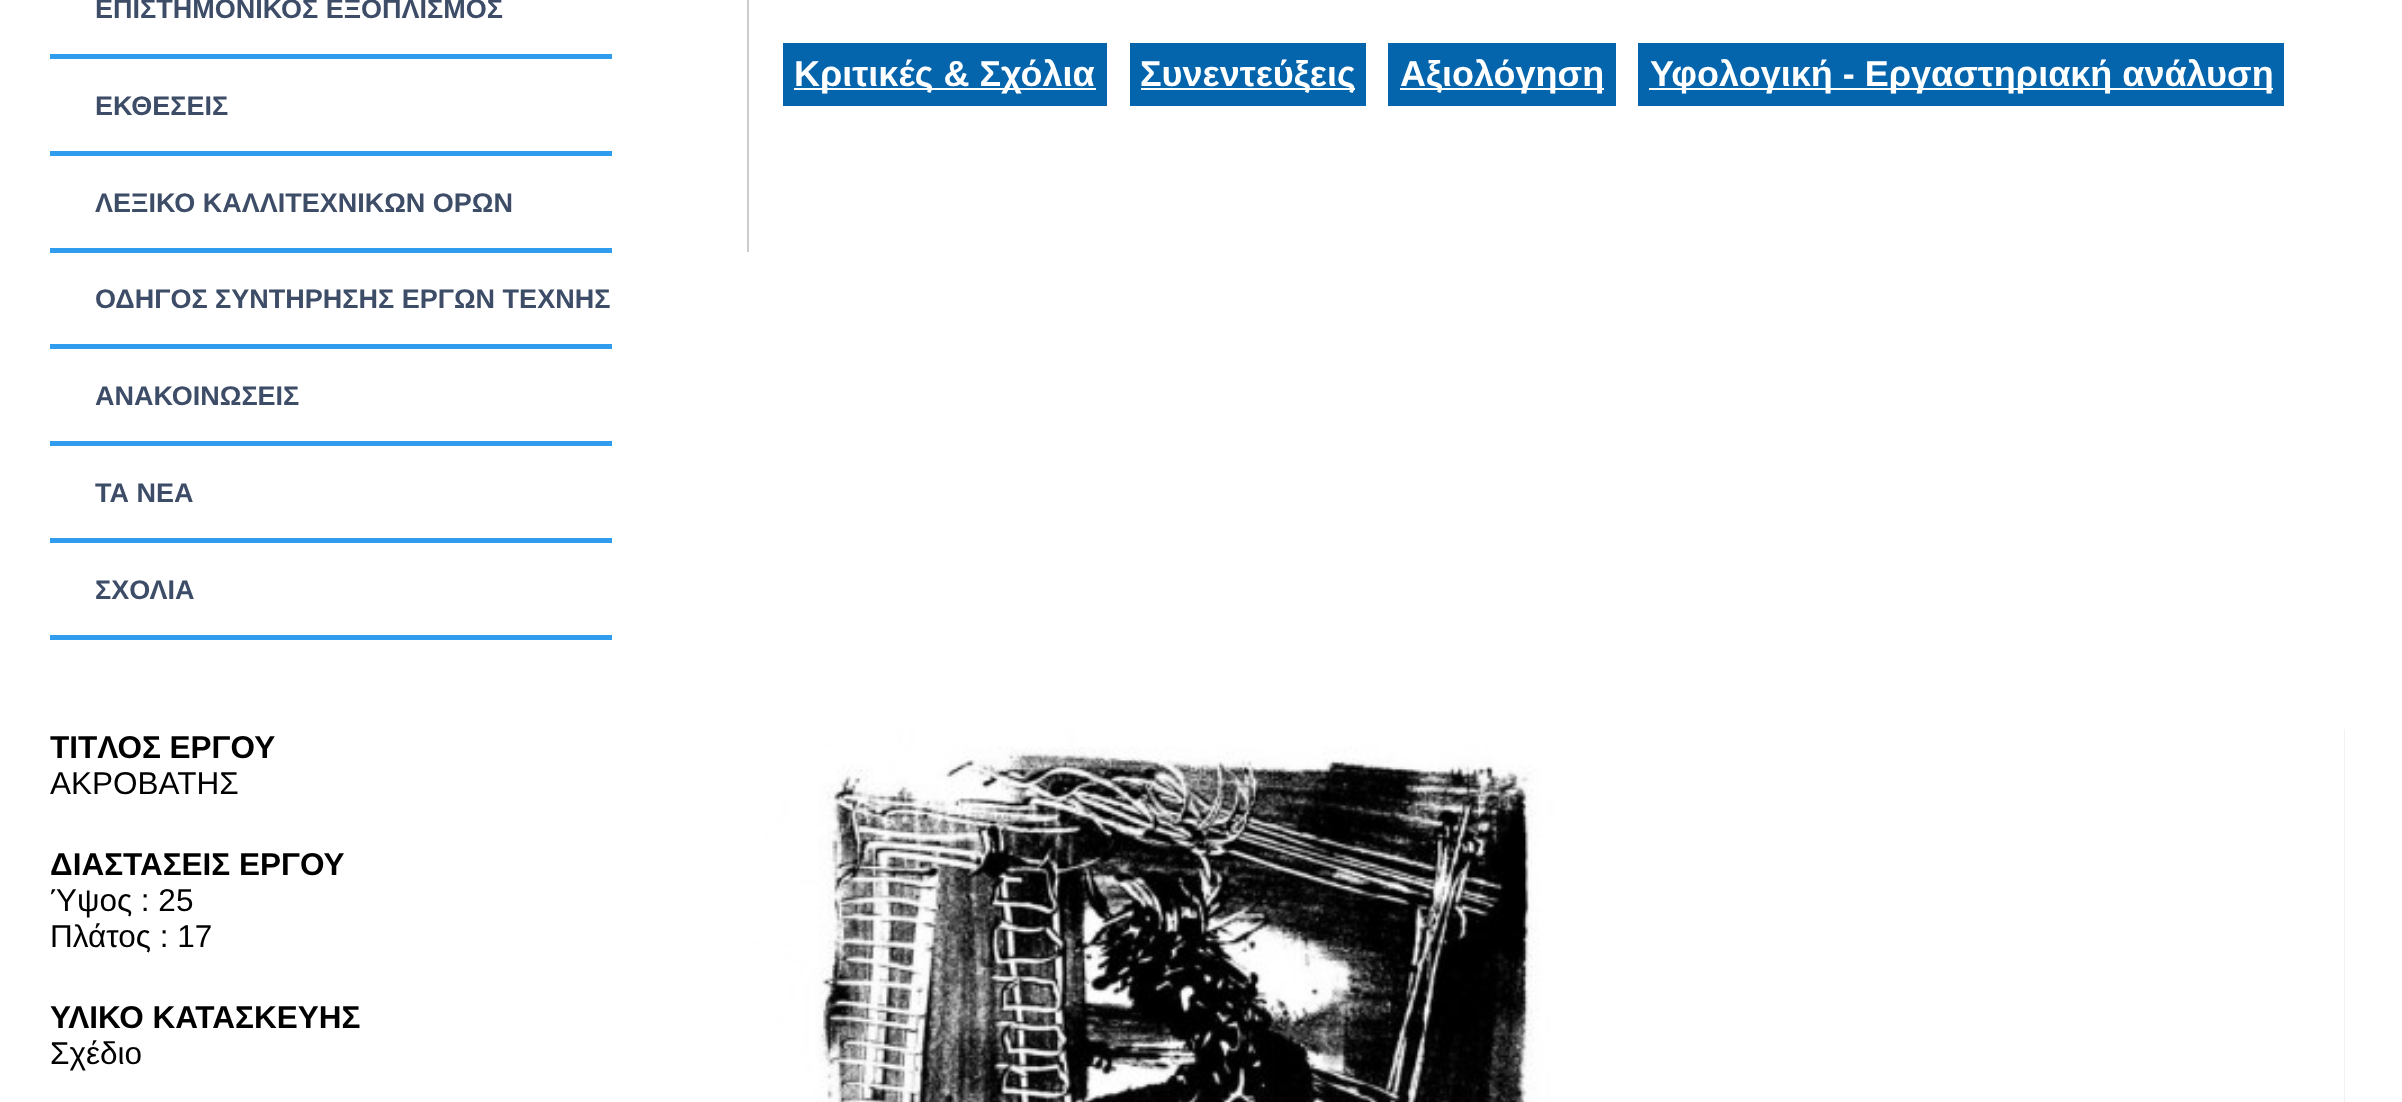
<svg xmlns="http://www.w3.org/2000/svg" width="2402" height="1102" viewBox="0 0 2402 1102">
  <rect width="100%" height="100%" fill="#ffffff"/>
  <rect x="50" y="54" width="562" height="5" fill="#2f9ced"/>
  <text x="95" y="18" font-family="Liberation Sans" font-size="27" font-weight="bold" fill="#3d4c67">ΕΠΙΣΤΗΜΟΝΙΚΟΣ ΕΞΟΠΛΙΣΜΟΣ</text>
  <rect x="50" y="151" width="562" height="5" fill="#2f9ced"/>
  <text x="95" y="115" font-family="Liberation Sans" font-size="27" font-weight="bold" fill="#3d4c67">ΕΚΘΕΣΕΙΣ</text>
  <rect x="50" y="248" width="562" height="5" fill="#2f9ced"/>
  <text x="95" y="212" font-family="Liberation Sans" font-size="27" font-weight="bold" fill="#3d4c67">ΛΕΞΙΚΟ ΚΑΛΛΙΤΕΧΝΙΚΩΝ ΟΡΩΝ</text>
  <rect x="50" y="344" width="562" height="5" fill="#2f9ced"/>
  <text x="95" y="308" font-family="Liberation Sans" font-size="27" font-weight="bold" fill="#3d4c67">ΟΔΗΓΟΣ ΣΥΝΤΗΡΗΣΗΣ ΕΡΓΩΝ ΤΕΧΝΗΣ</text>
  <rect x="50" y="441" width="562" height="5" fill="#2f9ced"/>
  <text x="95" y="405" font-family="Liberation Sans" font-size="27" font-weight="bold" fill="#3d4c67">ΑΝΑΚΟΙΝΩΣΕΙΣ</text>
  <rect x="50" y="538" width="562" height="5" fill="#2f9ced"/>
  <text x="95" y="502" font-family="Liberation Sans" font-size="27" font-weight="bold" fill="#3d4c67">ΤΑ ΝEΑ</text>
  <rect x="50" y="635" width="562" height="5" fill="#2f9ced"/>
  <text x="95" y="599" font-family="Liberation Sans" font-size="27" font-weight="bold" fill="#3d4c67">ΣΧΟΛΙΑ</text>
  <rect x="747" y="0" width="2" height="252" fill="#cccccc"/>
  <rect x="783" y="43" width="324" height="63" fill="#0465ad"/>
  <rect x="794" y="88" width="302" height="2" fill="#ffffff"/>
  <text x="794" y="86" font-family="Liberation Sans" font-size="36" font-weight="bold" fill="#ffffff">Κριτικές &amp; Σχόλια</text>
  <rect x="1130" y="43" width="236" height="63" fill="#0465ad"/>
  <rect x="1141" y="88" width="214" height="2" fill="#ffffff"/>
  <text x="1140" y="86" font-family="Liberation Sans" font-size="36" font-weight="bold" fill="#ffffff">Συνεντεύξεις</text>
  <rect x="1388" y="43" width="228" height="63" fill="#0465ad"/>
  <rect x="1400" y="88" width="204" height="2" fill="#ffffff"/>
  <text x="1400" y="86" font-family="Liberation Sans" font-size="36" font-weight="bold" fill="#ffffff">Αξιολόγηση</text>
  <rect x="1638" y="43" width="646" height="63" fill="#0465ad"/>
  <rect x="1649" y="88" width="624" height="2" fill="#ffffff"/>
  <text x="1650" y="86" font-family="Liberation Sans" font-size="36" font-weight="bold" fill="#ffffff">Υφολογική - Εργαστηριακή ανάλυση</text>
  <text x="50" y="758" font-family="Liberation Sans" font-size="31.5" font-weight="bold" fill="#000000">TITΛΟΣ ΕΡΓΟΥ</text>
  <text x="50" y="794" font-family="Liberation Sans" font-size="31.5" fill="#000000">ΑΚΡΟΒΑΤΗΣ</text>
  <text x="50" y="875" font-family="Liberation Sans" font-size="31.5" font-weight="bold" fill="#000000">ΔΙΑΣΤΑΣΕΙΣ ΕΡΓΟΥ</text>
  <text x="50" y="911" font-family="Liberation Sans" font-size="31.5" fill="#000000">Ύψος : 25</text>
  <text x="50" y="947" font-family="Liberation Sans" font-size="31.5" fill="#000000">Πλάτος : 17</text>
  <text x="50" y="1028" font-family="Liberation Sans" font-size="31.5" font-weight="bold" fill="#000000">ΥΛΙΚΟ ΚΑΤΑΣΚΕΥΗΣ</text>
  <text x="50" y="1064" font-family="Liberation Sans" font-size="31.5" fill="#000000">Σχέδιο</text>
  <rect x="2344" y="729" width="1" height="373" fill="#eeeeee"/>
  <image x="747" y="729" width="1598" height="373" href="img1.png"/>
</svg>
